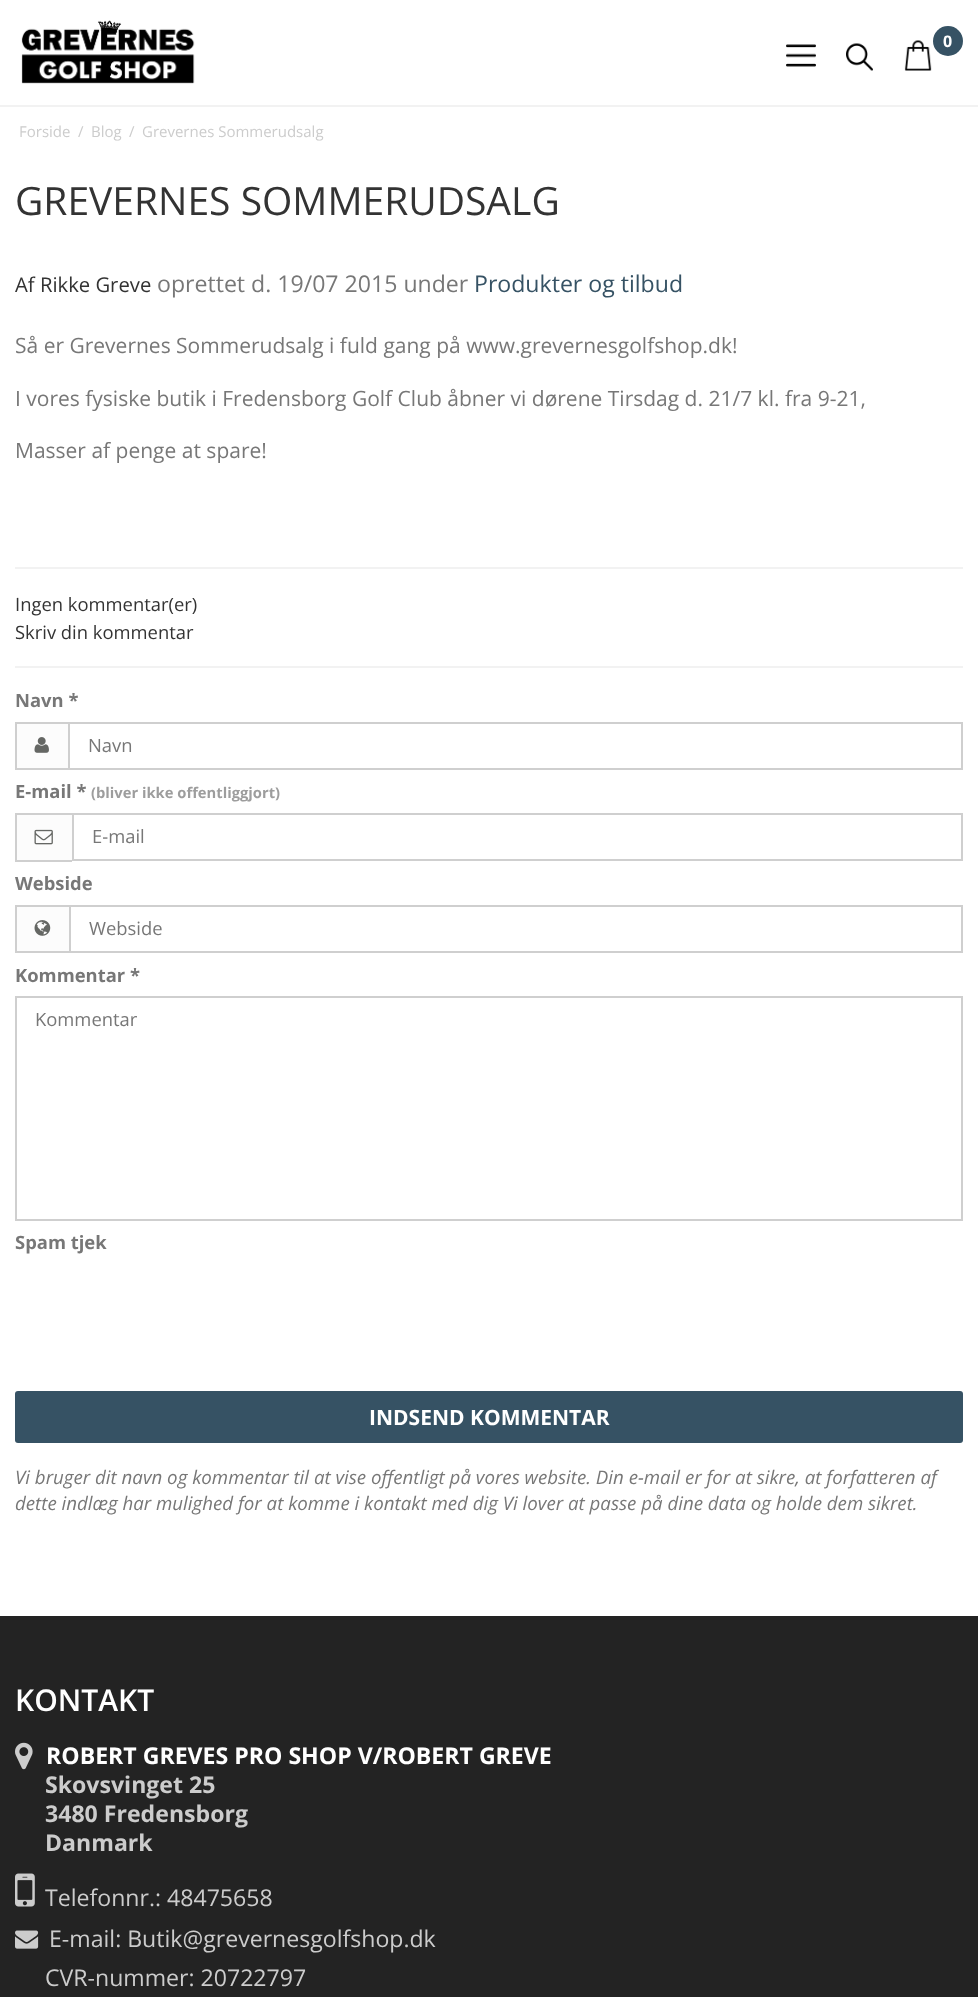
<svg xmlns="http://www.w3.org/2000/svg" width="978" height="1997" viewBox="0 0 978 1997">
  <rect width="100%" height="100%" fill="#ffffff"/>
  <rect x="0" y="105" width="978" height="2" fill="#f2f2f2"/>
  <image x="21" y="20" width="174" height="64" href="img1.png"/>
  <image x="904" y="40" width="28" height="31" href="img2.png"/>
  <circle cx="948" cy="41" r="15" fill="#365264"/>
  <text x="943" y="47" font-family="Open Sans" font-size="16" font-weight="bold" fill="#ffffff">0</text>
  <image x="786" y="44" width="30" height="23" href="img3.png"/>
  <image x="846" y="43" width="27" height="28" href="img4.png"/>
  <text x="19" y="137" font-family="Open Sans" font-size="15" fill="#cccccc">Forside</text>
  <text x="78" y="137" font-family="Open Sans" font-size="15" fill="#cccccc">/</text>
  <text x="91" y="137" font-family="Open Sans" font-size="15" fill="#cccccc">Blog</text>
  <text x="129" y="137" font-family="Open Sans" font-size="15" fill="#cccccc">/</text>
  <text x="142" y="137" font-family="Open Sans" font-size="15" fill="#cccccc">Grevernes Sommerudsalg</text>
  <text x="15" y="215" font-family="Open Sans" font-size="39" fill="#333333">GREVERNES SOMMERUDSALG</text>
  <text x="15" y="292" font-family="Open Sans" font-size="20.25" fill="#333333">Af Rikke Greve</text>
  <text x="157" y="292" font-family="Open Sans" font-size="23.1" fill="#777777">oprettet d. 19/07 2015 under</text>
  <text x="474" y="292" font-family="Open Sans" font-size="23.1" fill="#365264">Produkter og tilbud</text>
  <text x="15" y="353" font-family="Open Sans" font-size="21" fill="#777777">Så er Grevernes Sommerudsalg i fuld gang på www.grevernesgolfshop.dk!</text>
  <text x="15" y="406" font-family="Open Sans" font-size="21" fill="#777777">I vores fysiske butik i Fredensborg Golf Club åbner vi dørene Tirsdag d. 21/7 kl. fra 9-21,</text>
  <text x="15" y="458" font-family="Open Sans" font-size="21" fill="#777777">Masser af penge at spare!</text>
  <rect x="15" y="567" width="948" height="2" fill="#f2f2f2"/>
  <text x="15" y="611" font-family="Open Sans" font-size="18.4" fill="#333333">Ingen kommentar(er)</text>
  <text x="15" y="639" font-family="Open Sans" font-size="18.4" fill="#333333">Skriv din kommentar</text>
  <rect x="15" y="666" width="948" height="2" fill="#f2f2f2"/>
  <text x="15" y="707" font-family="Open Sans" font-size="18.4" font-weight="bold" fill="#777777">Navn *</text>
  <rect x="17" y="724" width="51" height="44" fill="#fcfcfc"/>
  <rect x="15" y="722" width="53" height="2" fill="#cfcfcf"/>
  <rect x="15" y="768" width="53" height="2" fill="#cfcfcf"/>
  <rect x="15" y="722" width="2" height="48" fill="#cfcfcf"/>
  <image x="34" y="737" width="15" height="16" href="img5.png"/>
  <rect x="69" y="723" width="893" height="46" fill="none" stroke="#cfcfcf" stroke-width="2"/>
  <text x="88" y="752" font-family="Open Sans" font-size="18.4" fill="#777777">Navn</text>
  <text x="15" y="798" font-family="Open Sans" font-size="18.4" font-weight="bold" fill="#777777">E-mail *</text>
  <text x="91" y="798" font-family="Open Sans" font-size="14.75" font-weight="bold" fill="#9d9d9d">(bliver ikke offentliggjort)</text>
  <rect x="17" y="815" width="55" height="45" fill="#fcfcfc"/>
  <rect x="15" y="813" width="57" height="2" fill="#cfcfcf"/>
  <rect x="15" y="860" width="57" height="2" fill="#cfcfcf"/>
  <rect x="15" y="813" width="2" height="48" fill="#cfcfcf"/>
  <image x="34" y="829" width="19" height="16" href="img6.png"/>
  <rect x="73" y="814" width="889" height="46" fill="none" stroke="#cfcfcf" stroke-width="2"/>
  <text x="92" y="843" font-family="Open Sans" font-size="18.4" fill="#777777">E-mail</text>
  <text x="15" y="890" font-family="Open Sans" font-size="18.4" font-weight="bold" fill="#777777">Webside</text>
  <rect x="17" y="907" width="52" height="44" fill="#fcfcfc"/>
  <rect x="15" y="905" width="54" height="2" fill="#cfcfcf"/>
  <rect x="15" y="951" width="54" height="2" fill="#cfcfcf"/>
  <rect x="15" y="905" width="2" height="48" fill="#cfcfcf"/>
  <image x="34" y="920" width="17" height="16" href="img7.png"/>
  <rect x="70" y="906" width="892" height="46" fill="none" stroke="#cfcfcf" stroke-width="2"/>
  <text x="89" y="935" font-family="Open Sans" font-size="18.4" fill="#777777">Webside</text>
  <text x="15" y="982" font-family="Open Sans" font-size="18.4" font-weight="bold" fill="#777777">Kommentar *</text>
  <rect x="16" y="997" width="946" height="223" fill="none" stroke="#cfcfcf" stroke-width="2"/>
  <text x="35" y="1026" font-family="Open Sans" font-size="18.4" fill="#777777">Kommentar</text>
  <text x="15" y="1249" font-family="Open Sans" font-size="18.4" font-weight="bold" fill="#777777">Spam tjek</text>
  <rect x="15" y="1391" width="948" height="52" rx="3" fill="#365264"/>
  <text x="369" y="1425" font-family="Open Sans" font-size="21" font-weight="bold" fill="#ffffff">INDSEND KOMMENTAR</text>
  <text x="15" y="1484" font-family="Open Sans" font-size="18.7" font-style="italic" fill="#777777">Vi bruger dit navn og kommentar til at vise offentligt på vores website. Din e-mail er for at sikre, at forfatteren af</text>
  <text x="15" y="1510" font-family="Open Sans" font-size="18.7" font-style="italic" fill="#777777">dette indlæg har mulighed for at komme i kontakt med dig Vi lover at passe på dine data og holde dem sikret.</text>
  <rect x="0" y="1616" width="978" height="381" fill="#232323"/>
  <text x="15" y="1711" font-family="Open Sans" font-size="30" font-weight="600" fill="#ffffff">KONTAKT</text>
  <image x="15" y="1742" width="18" height="28" href="img8.png"/>
  <text x="46" y="1764" font-family="Open Sans" font-size="23.1" font-weight="bold" fill="#ffffff">ROBERT GREVES PRO SHOP V/ROBERT GREVE</text>
  <text x="45" y="1793" font-family="Open Sans" font-size="23.1" font-weight="bold" fill="#cccccc">Skovsvinget 25</text>
  <text x="45" y="1822" font-family="Open Sans" font-size="23.1" font-weight="bold" fill="#cccccc">3480 Fredensborg</text>
  <text x="45" y="1851" font-family="Open Sans" font-size="23.1" font-weight="bold" fill="#cccccc">Danmark</text>
  <image x="15" y="1873" width="20" height="34" href="img9.png"/>
  <text x="45" y="1906" font-family="Open Sans" font-size="23.1" fill="#cccccc">Telefonnr.: 48475658</text>
  <image x="15" y="1930" width="24" height="19" href="img10.png"/>
  <text x="49" y="1947" font-family="Open Sans" font-size="23.1" fill="#cccccc">E-mail: Butik@grevernesgolfshop.dk</text>
  <text x="45" y="1986" font-family="Open Sans" font-size="23.1" fill="#cccccc">CVR-nummer: 20722797</text>
</svg>
